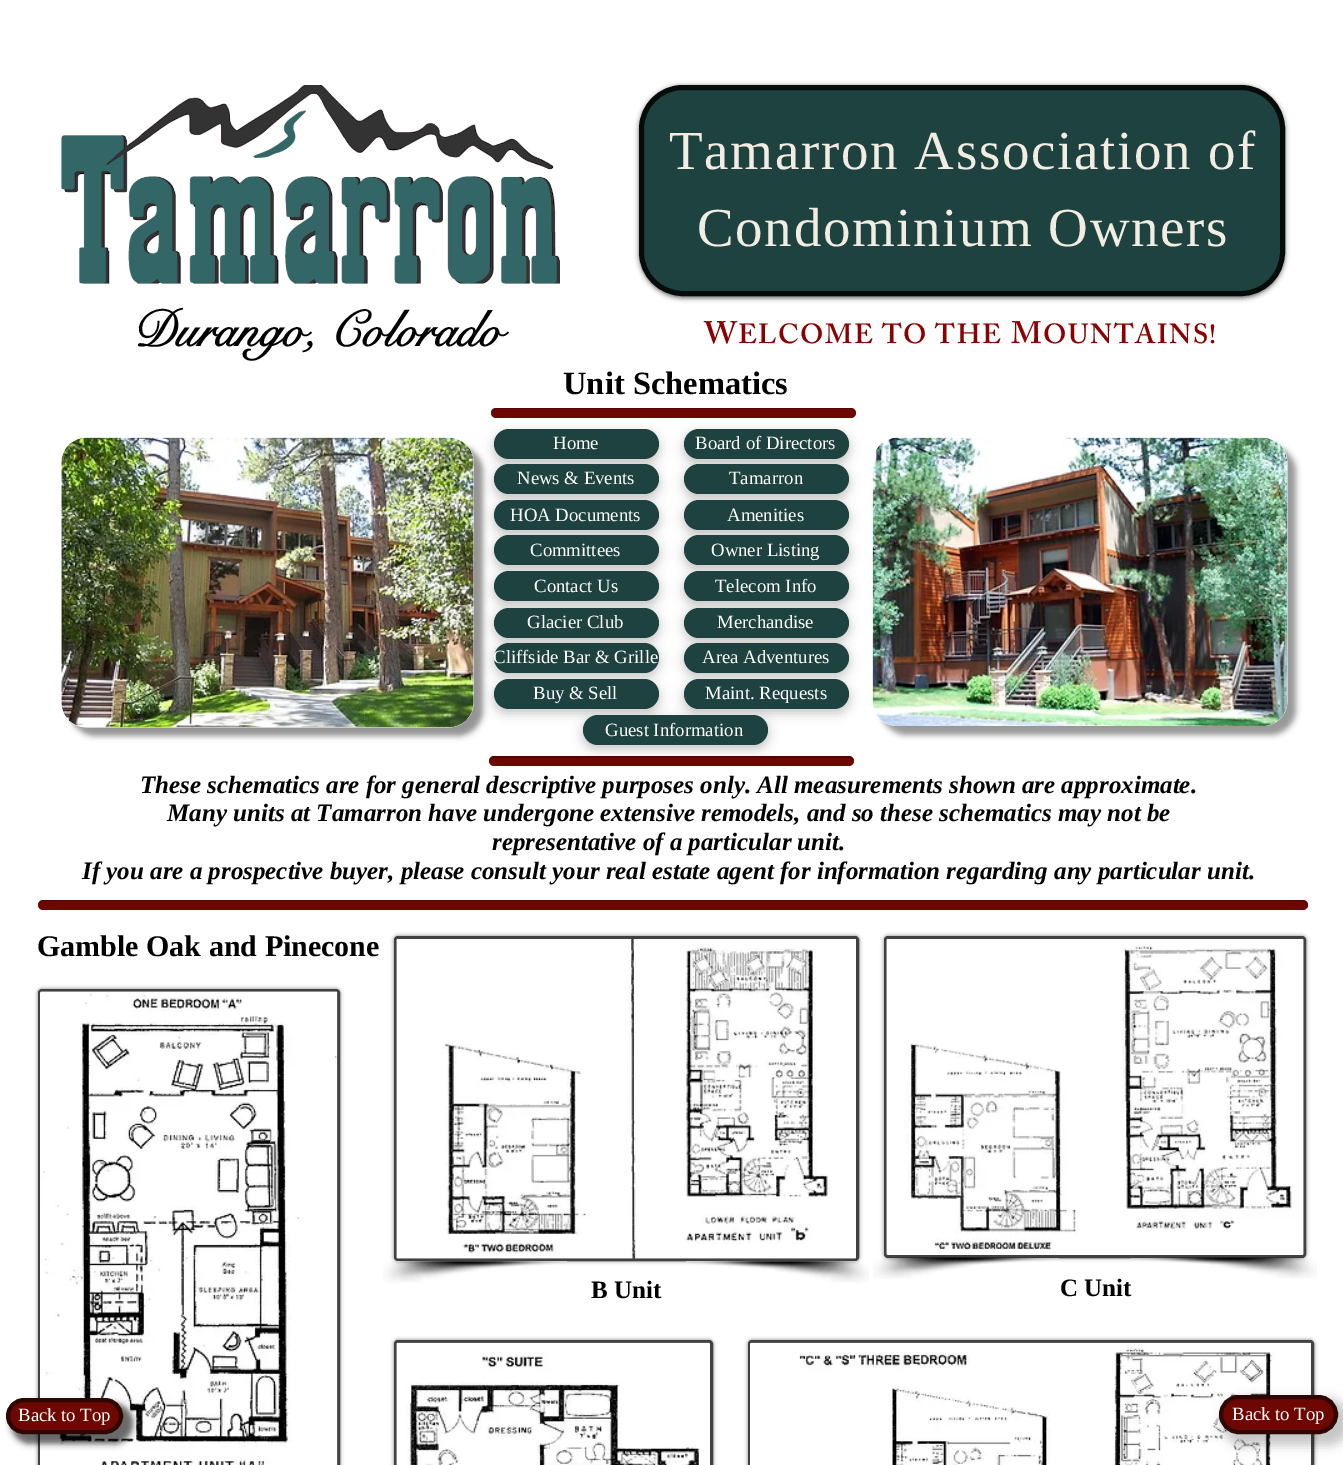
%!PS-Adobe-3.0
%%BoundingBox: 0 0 1343 1465
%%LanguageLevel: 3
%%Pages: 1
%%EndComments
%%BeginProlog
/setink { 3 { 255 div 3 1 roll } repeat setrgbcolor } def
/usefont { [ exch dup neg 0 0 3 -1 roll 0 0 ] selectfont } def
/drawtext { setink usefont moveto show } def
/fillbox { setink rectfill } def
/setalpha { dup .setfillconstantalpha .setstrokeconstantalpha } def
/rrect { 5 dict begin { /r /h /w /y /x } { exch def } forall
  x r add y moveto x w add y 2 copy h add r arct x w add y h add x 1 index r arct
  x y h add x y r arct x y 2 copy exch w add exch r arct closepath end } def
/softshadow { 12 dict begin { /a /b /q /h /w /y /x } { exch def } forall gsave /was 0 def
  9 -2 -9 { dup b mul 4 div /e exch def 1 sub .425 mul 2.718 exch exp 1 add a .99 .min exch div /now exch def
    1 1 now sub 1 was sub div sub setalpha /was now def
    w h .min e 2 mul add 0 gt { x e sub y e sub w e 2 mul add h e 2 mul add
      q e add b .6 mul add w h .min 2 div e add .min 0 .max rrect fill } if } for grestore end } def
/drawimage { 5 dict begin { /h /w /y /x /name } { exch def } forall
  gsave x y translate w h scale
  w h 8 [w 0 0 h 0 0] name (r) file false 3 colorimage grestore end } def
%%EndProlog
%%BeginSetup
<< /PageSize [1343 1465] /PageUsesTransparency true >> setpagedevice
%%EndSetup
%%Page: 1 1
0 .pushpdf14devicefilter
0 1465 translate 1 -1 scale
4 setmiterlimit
0 0 1343 1465 255 255 255 fillbox
(assets/img1.rgb) 61 85 499 199 drawimage
0 0 0 setink
639 86 646 212 44 2.5 0.6 softshadow
29 66 64 setink
641.5 87.5 641 206 41.5 rrect gsave fill grestore
6 12 10 setink
5 setlinewidth
stroke
/LiberationSerif-Regular 55 usefont
242 236 225 setink
669 169 moveto 1.65 0 (Tamarron Association of) ashow
697 246 moveto 1.65 0 (Condominium Owners) ashow
(Durango, Colorado) 132 346 /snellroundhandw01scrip-Bold 50 0 0 0 drawtext
/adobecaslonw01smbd-SemiBold 31 usefont
139 0 0 setink
704 343 moveto 1.5 0 (W) ashow
/adobecaslonw01smbd-SemiBold 27.5 usefont
738 343 moveto 1.5 0 (ELCOME TO THE) ashow
/adobecaslonw01smbd-SemiBold 31 usefont
1011 343 moveto 1.5 0 (M) ashow
/adobecaslonw01smbd-SemiBold 27.5 usefont
1043 343 moveto 1.5 0 (OUNTAINS!) ashow
(Unit Schematics) 563 394 /LiberationSerif-Bold 32.5 0 0 0 drawtext
110 7 1 setink
491 408 365 10 5 rrect fill
0.25 setalpha
0 0 0 setink
496 409 moveto 851 409 lineto 854 409 856 411 856 413 curveto 856 411 854 408 851 408 curveto 496 408 lineto 495 408 493 409 492 409 curveto 491 411 lineto 491 413 lineto 491 411 493 409 496 409 curveto closepath fill
1 setalpha
70 446 413 290 25 3 0.42 softshadow
(assets/img2.rgb) 61 437 413 291 drawimage
494 433 165 30 15 5.5 0.23 softshadow
29 66 64 setink
494 429 165 30 15 rrect fill
(Home) 553 449 /LiberationSerif-Regular 18.75 255 255 255 drawtext
0 0 0 setink
684 433 165 30 15 5.5 0.23 softshadow
29 66 64 setink
684 429 165 30 15 rrect fill
(Board of Directors) 695 449 /LiberationSerif-Regular 18.75 255 255 255 drawtext
0 0 0 setink
881 446 415 289 25 3 0.4 softshadow
(assets/img3.rgb) 872 437 416 289 drawimage
494 468 165 30 15 5.5 0.23 softshadow
29 66 64 setink
494 464 165 30 15 rrect fill
(News & Events) 517 484 /LiberationSerif-Regular 18.75 255 255 255 drawtext
0 0 0 setink
684 468 165 30 15 5.5 0.23 softshadow
29 66 64 setink
684 464 165 30 15 rrect fill
(Tamarron) 729 484 /LiberationSerif-Regular 18.75 255 255 255 drawtext
0 0 0 setink
494 504 165 30 15 5.5 0.23 softshadow
29 66 64 setink
494 500 165 30 15 rrect fill
(HOA Documents) 510 521 /LiberationSerif-Regular 18.75 255 255 255 drawtext
0 0 0 setink
684 504 165 30 15 5.5 0.23 softshadow
29 66 64 setink
684 500 165 30 15 rrect fill
(Amenities) 727 521 /LiberationSerif-Regular 18.75 255 255 255 drawtext
0 0 0 setink
494 539 165 30 15 5.5 0.23 softshadow
29 66 64 setink
494 535 165 30 15 rrect fill
(Committees) 530 556 /LiberationSerif-Regular 18.75 255 255 255 drawtext
0 0 0 setink
684 539 165 30 15 5.5 0.23 softshadow
29 66 64 setink
684 535 165 30 15 rrect fill
(Owner Listing) 711 556 /LiberationSerif-Regular 18.75 255 255 255 drawtext
0 0 0 setink
494 575 165 30 15 5.5 0.23 softshadow
29 66 64 setink
494 571 165 30 15 rrect fill
(Contact Us) 534 592 /LiberationSerif-Regular 18.75 255 255 255 drawtext
0 0 0 setink
684 575 165 30 15 5.5 0.23 softshadow
29 66 64 setink
684 571 165 30 15 rrect fill
(Telecom Info) 715 592 /LiberationSerif-Regular 18.75 255 255 255 drawtext
0 0 0 setink
494 611 165 30 15 5.5 0.23 softshadow
29 66 64 setink
494 608 165 30 15 rrect fill
(Glacier Club) 527 628 /LiberationSerif-Regular 18.75 255 255 255 drawtext
0 0 0 setink
684 611 165 30 15 5.5 0.23 softshadow
29 66 64 setink
684 608 165 30 15 rrect fill
(Merchandise) 717 628 /LiberationSerif-Regular 18.75 255 255 255 drawtext
0 0 0 setink
494 646 165 30 15 5.5 0.23 softshadow
29 66 64 setink
494 643 165 30 15 rrect fill
(Cliffside Bar & Grille) 493 663 /LiberationSerif-Regular 18.75 255 255 255 drawtext
0 0 0 setink
684 646 165 30 15 5.5 0.23 softshadow
29 66 64 setink
684 643 165 30 15 rrect fill
(Area Adventures) 702 663 /LiberationSerif-Regular 18.75 255 255 255 drawtext
0 0 0 setink
494 683 165 30 15 5.5 0.23 softshadow
29 66 64 setink
494 679 165 30 15 rrect fill
(Buy & Sell) 533 699 /LiberationSerif-Regular 18.75 255 255 255 drawtext
0 0 0 setink
684 683 165 30 15 5.5 0.23 softshadow
29 66 64 setink
684 679 165 30 15 rrect fill
(Maint. Requests) 705 699 /LiberationSerif-Regular 18.75 255 255 255 drawtext
0 0 0 setink
583 719 185 30 15 5.5 0.23 softshadow
29 66 64 setink
583 715 185 30 15 rrect fill
(Guest Information) 605 736 /LiberationSerif-Regular 18.75 255 255 255 drawtext
110 7 1 setink
489 756 365 10 5 rrect fill
0.25 setalpha
0 0 0 setink
494 758 moveto 849 758 lineto 852 758 854 760 854 762 curveto 854 759 852 756 849 756 curveto 494 756 lineto 491 756 489 759 489 762 curveto 489 760 491 758 494 758 curveto closepath fill
1 setalpha
(These schematics are for general descriptive purposes only. All measurements shown are approximate.) 140 793 /LiberationSerif-BoldItalic 25 0 0 0 drawtext
(Many units at Tamarron have undergone extensive remodels, and so these schematics may not be) 167 821 /LiberationSerif-BoldItalic 25 0 0 0 drawtext
(representative of a particular unit.) 492 850 /LiberationSerif-BoldItalic 25 0 0 0 drawtext
(If you are a prospective buyer, please consult your real estate agent for information regarding any particular unit.) 82 879 /LiberationSerif-BoldItalic 25 0 0 0 drawtext
110 7 1 setink
38 900 1270 10 5 rrect fill
0.25 setalpha
0 0 0 setink
42 901 moveto 1302 901 lineto 1306 901 1308 905 1307 908 curveto 1308 907 1308 906 1308 905 curveto 1308 902 1306 900 1303 900 curveto 43 900 lineto 41 900 40 901 39 903 curveto 39 902 41 901 42 901 curveto closepath fill
1 setalpha
(Gamble Oak and Pinecone) 37 956 /LiberationSerif-Bold 30 0 0 0 drawtext
394 936 465 325 4 2 0.5 softshadow
65 65 65 setink
3 setlinewidth
395.5 937.5 462 322 2.5 rrect stroke
(assets/img4.rgb) 396 939 460 320 drawimage
(assets/img5.rgb) 383 1261 184 22 drawimage
(assets/img6.rgb) 686 1261 183 22 drawimage
0 0 0 setink
884 936 422 322 4 2 0.5 softshadow
65 65 65 setink
885.5 937.5 419 319 2.5 rrect stroke
(assets/img7.rgb) 886 939 418 316 drawimage
(assets/img8.rgb) 873 1257 186 22 drawimage
(assets/img9.rgb) 1131 1257 186 22 drawimage
0 0 0 setink
38 989 302 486 4 2 0.5 softshadow
65 65 65 setink
39.5 990.5 299 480 2.5 rrect stroke
(assets/img10.rgb) 40 991 298 474 drawimage
(B Unit) 591 1298 /LiberationSerif-Bold 25 0 0 0 drawtext
(C Unit) 1060 1296 /LiberationSerif-Bold 25 0 0 0 drawtext
394 1340 319 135 4 2 0.5 softshadow
65 65 65 setink
395.5 1341.5 316 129 2.5 rrect stroke
(assets/img11.rgb) 396 1342 314 123 drawimage
0 0 0 setink
748 1340 566 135 4 2 0.5 softshadow
65 65 65 setink
749.5 1341.5 563 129 2.5 rrect stroke
(assets/img12.rgb) 750 1342 561 123 drawimage
0 0 0 setink
11 1403 122 41 20.5 3 0.6 softshadow
110 7 1 setink
8 1400 113 32 16 rrect gsave fill grestore
46 6 4 setink
4 setlinewidth
stroke
(Back to Top) 18 1421 /LiberationSerif-Regular 18.75 255 255 255 drawtext
0 0 0 setink
1223 1399 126 46 23 5.5 0.23 softshadow
110 7 1 setink
1221 1397 115 35 17.5 rrect gsave fill grestore
46 6 4 setink
stroke
(Back to Top) 1232 1420 /LiberationSerif-Regular 18.75 255 255 255 drawtext
.poppdf14devicefilter showpage
%%EOF
